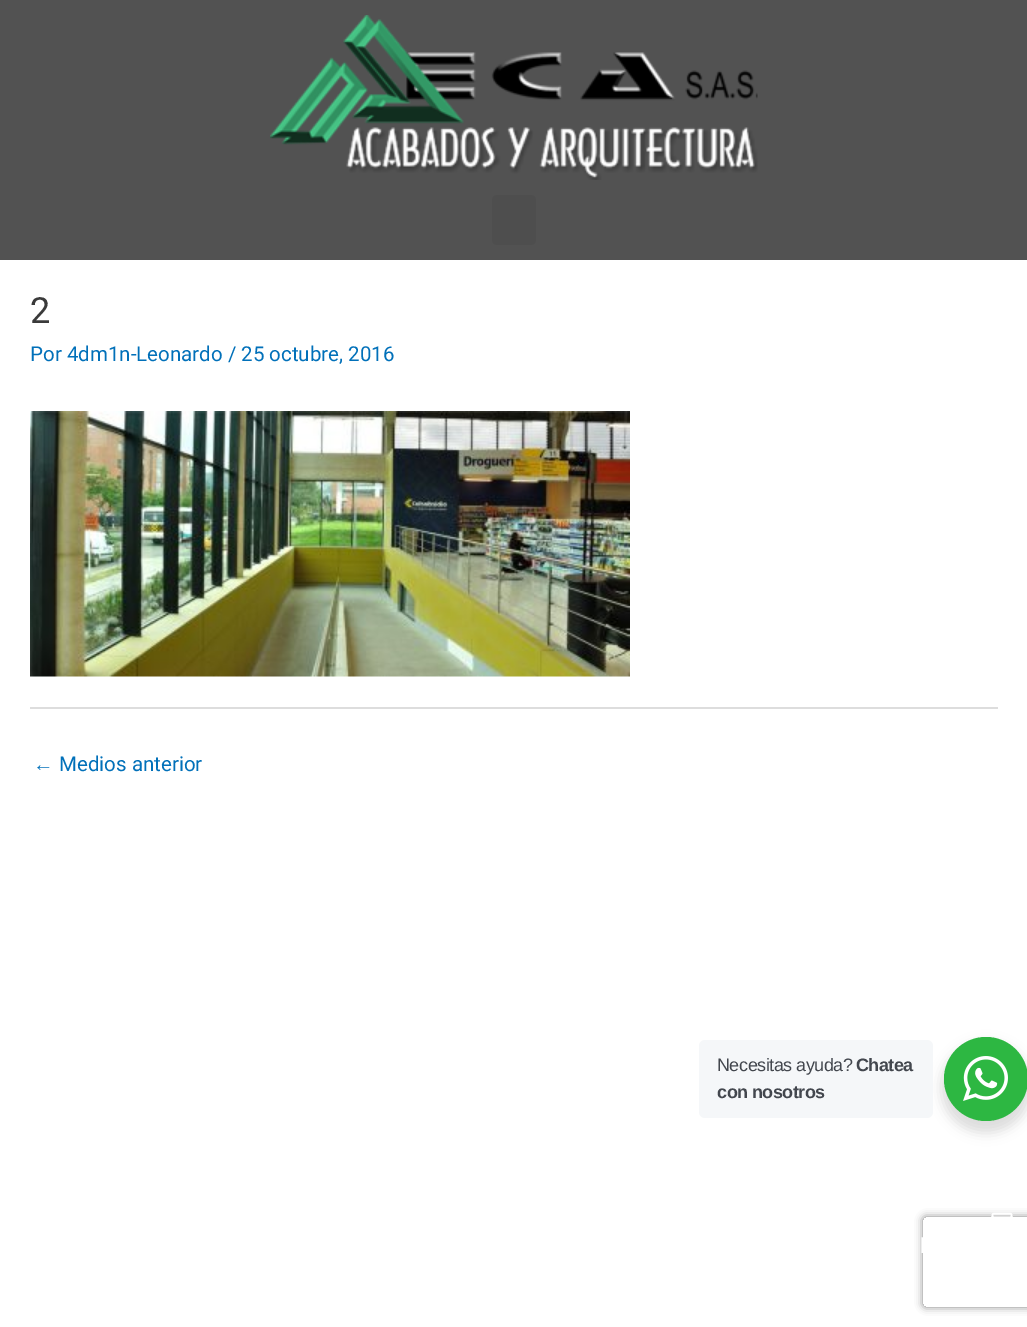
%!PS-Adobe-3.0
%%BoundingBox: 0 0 1027 1327
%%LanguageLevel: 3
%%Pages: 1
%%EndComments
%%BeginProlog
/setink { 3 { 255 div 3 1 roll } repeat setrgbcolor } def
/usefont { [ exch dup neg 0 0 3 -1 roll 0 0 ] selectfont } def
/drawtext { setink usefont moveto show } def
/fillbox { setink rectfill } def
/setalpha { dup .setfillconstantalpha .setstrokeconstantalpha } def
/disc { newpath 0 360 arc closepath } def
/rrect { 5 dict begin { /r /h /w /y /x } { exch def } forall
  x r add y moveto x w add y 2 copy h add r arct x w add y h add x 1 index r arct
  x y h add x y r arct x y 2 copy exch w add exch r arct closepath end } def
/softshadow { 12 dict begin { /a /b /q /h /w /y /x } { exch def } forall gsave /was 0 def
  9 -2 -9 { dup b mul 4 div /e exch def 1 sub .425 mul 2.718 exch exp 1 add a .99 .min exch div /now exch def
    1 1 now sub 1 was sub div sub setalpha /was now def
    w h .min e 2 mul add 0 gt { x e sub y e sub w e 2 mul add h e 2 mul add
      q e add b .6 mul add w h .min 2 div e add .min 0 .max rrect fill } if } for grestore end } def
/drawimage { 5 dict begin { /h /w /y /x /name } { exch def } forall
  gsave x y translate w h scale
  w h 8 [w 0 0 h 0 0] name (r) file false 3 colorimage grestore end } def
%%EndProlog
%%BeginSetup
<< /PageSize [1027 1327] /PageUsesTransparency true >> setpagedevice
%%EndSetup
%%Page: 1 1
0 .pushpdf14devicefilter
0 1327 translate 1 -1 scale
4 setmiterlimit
0 0 1027 1327 255 255 255 fillbox
0 0 1027 260 82 82 82 fillbox
(assets/img1.rgb) 270 15 488 165 drawimage
78 78 78 setink
492 195 44 50 5 rrect fill
(2) 30 323 /Roboto-Regular 36 58 58 58 drawtext
(Por 4dm1n-Leonardo / 25 octubre, 2016) 30 361 /Roboto-Regular 20.5 1 112 185 drawtext
(assets/img2.rgb) 30 411 600 266 drawimage
30 707 968 2 221 221 221 fillbox
(←) 33 771 /LiberationSans-Regular 20.5 1 112 185 drawtext
(Medios anterior) 59 771 /Roboto-Regular 20.5 1 112 185 drawtext
gsave
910 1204 moveto 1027 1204 lineto 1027 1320 lineto 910 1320 lineto closepath 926 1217 moveto 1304 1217 lineto 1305.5 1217 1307 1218.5 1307 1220 curveto 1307 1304 lineto 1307 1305.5 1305.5 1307 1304 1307 curveto 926 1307 lineto 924.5 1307 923 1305.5 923 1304 curveto 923 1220 lineto 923 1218.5 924.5 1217 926 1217 curveto closepath eoclip newpath
128 128 128 setink
923 1217 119 90 3 4 1 softshadow
grestore
(assets/img3.rgb) 991 1212 22 5 drawimage
(l) 920 1253 /Roboto-Regular 21 255 255 255 drawtext
0 0 0 setink
941 1043 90 90 45 6 0.14 softshadow
245 247 249 setink
699 1040 234 78 6 rrect fill
/LiberationSans-Regular 18 usefont
67 71 78 setink
717 1071 moveto -0.5 0 (Necesitas ayuda?) ashow
/LiberationSans-Bold 18 usefont
856 1071 moveto -0.5 0 (Chatea) ashow
717 1098 moveto -0.5 0 (con nosotros) ashow
45 183 66 setink
986 1079 42 disc fill
(assets/img4.rgb) 963 1056 45 45 drawimage
.poppdf14devicefilter showpage
%%EOF
